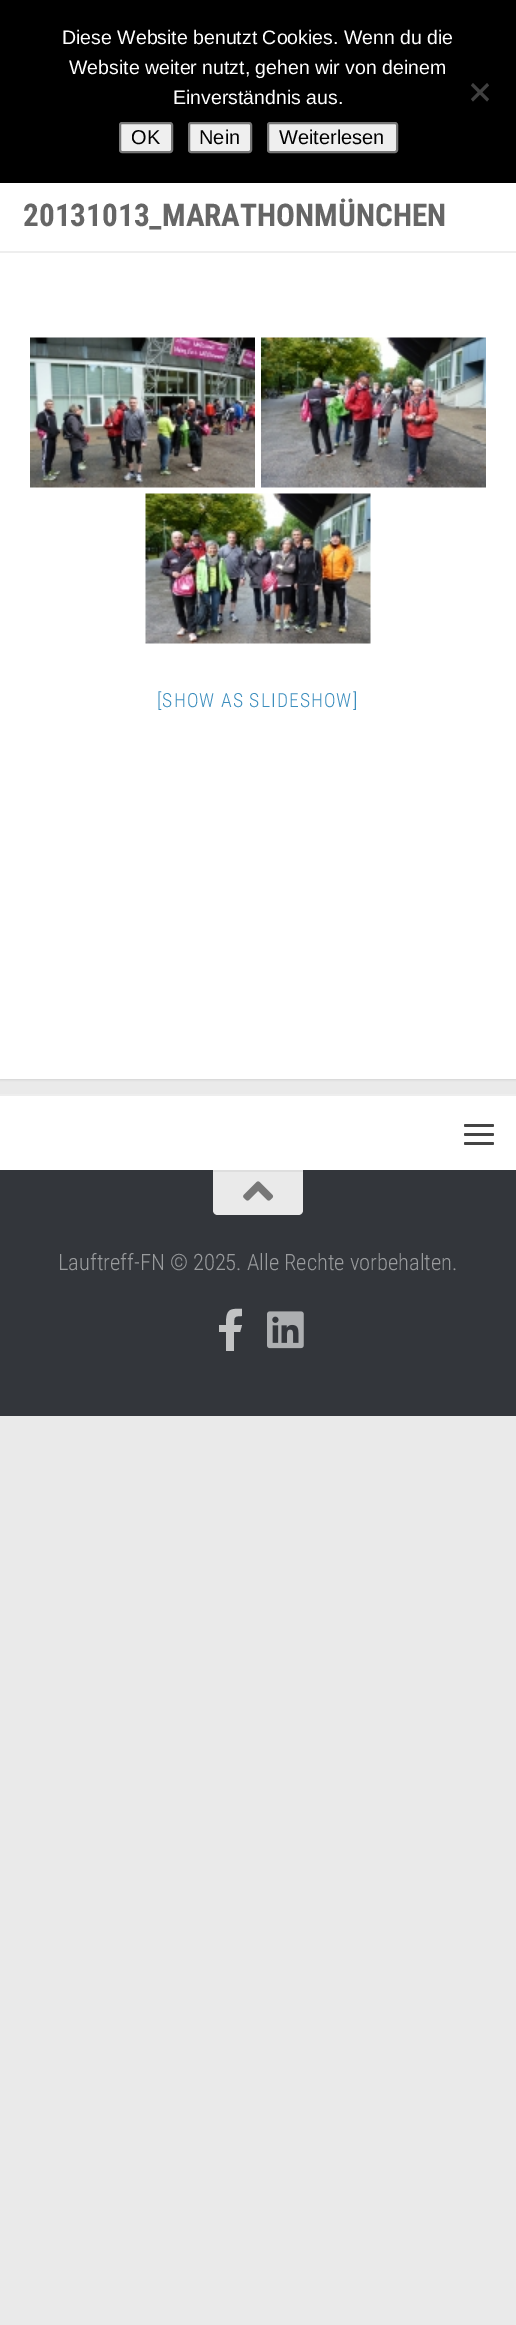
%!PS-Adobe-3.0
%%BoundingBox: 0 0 516 2325
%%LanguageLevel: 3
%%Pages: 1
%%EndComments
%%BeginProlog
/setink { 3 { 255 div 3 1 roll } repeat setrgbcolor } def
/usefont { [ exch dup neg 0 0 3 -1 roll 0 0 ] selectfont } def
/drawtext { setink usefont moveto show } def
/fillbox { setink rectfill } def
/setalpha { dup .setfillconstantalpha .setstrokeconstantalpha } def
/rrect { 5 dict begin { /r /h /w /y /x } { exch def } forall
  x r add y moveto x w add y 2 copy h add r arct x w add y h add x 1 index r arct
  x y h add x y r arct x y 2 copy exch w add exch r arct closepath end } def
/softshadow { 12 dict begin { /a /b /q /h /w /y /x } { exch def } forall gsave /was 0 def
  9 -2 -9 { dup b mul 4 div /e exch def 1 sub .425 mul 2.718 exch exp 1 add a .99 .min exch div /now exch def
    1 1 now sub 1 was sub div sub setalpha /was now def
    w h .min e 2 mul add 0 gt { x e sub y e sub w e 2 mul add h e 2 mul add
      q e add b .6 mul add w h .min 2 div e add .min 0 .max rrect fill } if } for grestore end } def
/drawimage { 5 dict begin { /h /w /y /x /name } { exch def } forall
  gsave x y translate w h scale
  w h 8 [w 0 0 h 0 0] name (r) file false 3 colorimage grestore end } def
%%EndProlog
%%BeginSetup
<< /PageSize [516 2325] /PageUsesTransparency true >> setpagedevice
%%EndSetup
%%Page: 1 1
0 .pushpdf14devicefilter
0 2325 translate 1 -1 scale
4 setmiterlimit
0 0 516 2325 234 234 234 fillbox
0 0 0 setink
0 180 516 900 0 1 0.1 softshadow
0 0 516 183 0 0 0 fillbox
(Diese Website benutzt Cookies. Wenn du die) 62 44 /LiberationSans-Regular 19.5 255 255 255 drawtext
(Website weiter nutzt, gehen wir von deinem) 69 74 /LiberationSans-Regular 19.5 255 255 255 drawtext
(Einverständnis aus.) 173 104 /LiberationSans-Regular 19.5 255 255 255 drawtext
64 64 64 setink
487 83 moveto 489 85.5 lineto 473 101.5 lineto 471 99 lineto closepath fill
471 85.5 moveto 473 83 lineto 489 99 lineto 487 101.5 lineto closepath fill
239 239 239 setink
120 123 52 29 2 rrect gsave fill grestore
118 118 118 setink
2 setlinewidth
stroke
(OK) 131 144 /LiberationSans-Regular 20 0 0 0 drawtext
239 239 239 setink
189 123 62 29 2 rrect gsave fill grestore
118 118 118 setink
stroke
(Nein) 199 144 /LiberationSans-Regular 20 0 0 0 drawtext
239 239 239 setink
268 123 129 29 2 rrect gsave fill grestore
118 118 118 setink
stroke
(Weiterlesen) 279 144 /LiberationSans-Regular 20 0 0 0 drawtext
0 183 516 896 255 255 255 fillbox
0 251 516 2 238 238 238 fillbox
(20131013_MARATHONMÜNCHEN) 23 226 /RobotoCondensed-Bold 31.25 102 102 102 drawtext
(assets/img1.rgb) 30 337 225 151 drawimage
(assets/img2.rgb) 261 337 225 151 drawimage
(assets/img3.rgb) 145 493 226 151 drawimage
/RobotoCondensed-Light 19.5 usefont
59 141 189 setink
157 707 moveto 1.1 0 ([SHOW AS SLIDESHOW]) ashow
0 1096 516 74 255 255 255 fillbox
0 1094 516 2 238 238 238 fillbox
68 68 68 setink
464 1124 30 3 1.5 rrect fill
464 1133 30 3 1.5 rrect fill
464 1142 30 3 1.5 rrect fill
0 1170 516 246 51 54 59 fillbox
234 234 234 setink
213 1170 moveto 303 1170 lineto 303 1210 lineto 303 1213 301 1215 298 1215 curveto 218 1215 lineto 215 1215 213 1213 213 1210 curveto closepath fill
213 1170 90 2 222 222 222 fillbox
(assets/img4.rgb) 243 1181 31 20 drawimage
(Lauftreff-FN © 2025. Alle Rechte vorbehalten.) 58 1270 /RobotoCondensed-Light 22.5 153 155 157 drawtext
194 195 196 setink
240 1332 moveto 234 1332 lineto 234 1351 lineto 226 1351 lineto 226 1332 lineto 219 1332 lineto 219 1325 lineto 226 1325 lineto 226 1311 228 1308 242 1309 curveto 242 1316 lineto 234 1316 234 1317 234 1325 curveto 242 1325 lineto closepath fill
(assets/img5.rgb) 267 1311 37 38 drawimage
.poppdf14devicefilter showpage
%%EOF
